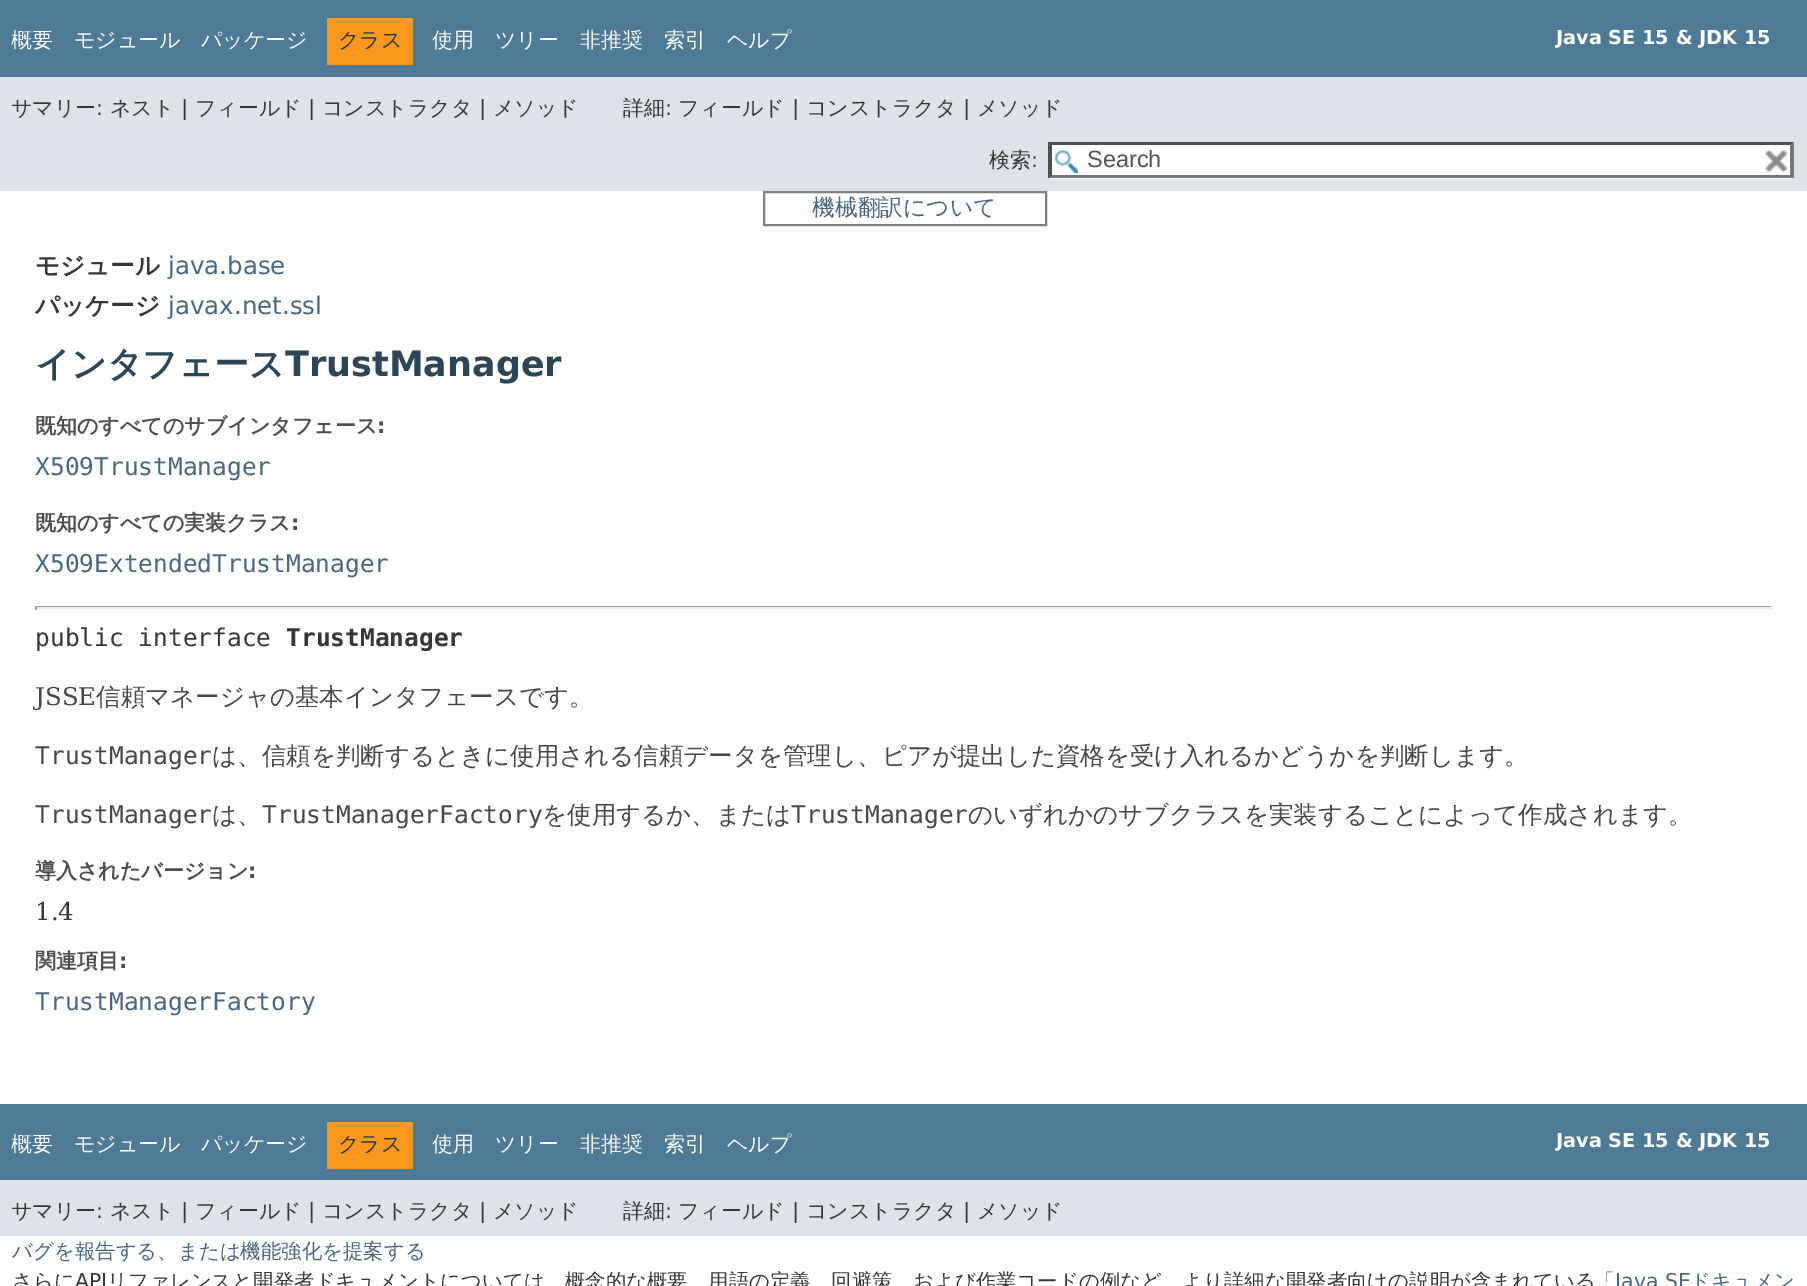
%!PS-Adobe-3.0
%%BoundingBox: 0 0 1807 1286
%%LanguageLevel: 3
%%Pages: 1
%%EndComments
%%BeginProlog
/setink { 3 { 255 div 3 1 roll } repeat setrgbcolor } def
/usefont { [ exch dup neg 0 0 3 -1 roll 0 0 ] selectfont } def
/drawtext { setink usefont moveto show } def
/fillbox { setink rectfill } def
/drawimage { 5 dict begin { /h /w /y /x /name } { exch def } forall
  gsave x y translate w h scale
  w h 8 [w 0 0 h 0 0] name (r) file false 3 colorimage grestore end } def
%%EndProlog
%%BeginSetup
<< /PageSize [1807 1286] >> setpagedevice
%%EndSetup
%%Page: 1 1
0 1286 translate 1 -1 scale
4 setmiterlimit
0 0 1807 1286 255 255 255 fillbox
0 0 1807 77 77 122 151 fillbox
(概要) 11 47 /WenQuanYiZenHei-Medium 21 255 255 255 drawtext
(モジュール) 74 47 /WenQuanYiZenHei-Medium 21 255 255 255 drawtext
(パッケージ) 201 47 /WenQuanYiZenHei-Medium 21 255 255 255 drawtext
327 18 86 47 248 152 29 fillbox
(クラス) 338 47 /WenQuanYiZenHei-Medium 21 37 52 65 drawtext
(使用) 432 47 /WenQuanYiZenHei-Medium 21 255 255 255 drawtext
(ツリー) 495 47 /WenQuanYiZenHei-Medium 21 255 255 255 drawtext
(非推奨) 580 47 /WenQuanYiZenHei-Medium 21 255 255 255 drawtext
(索引) 664 47 /WenQuanYiZenHei-Medium 21 255 255 255 drawtext
(ヘルプ) 727 47 /WenQuanYiZenHei-Medium 21 255 255 255 drawtext
(Java SE 15 & JDK 15) 1556 44 /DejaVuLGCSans-Bold 19.25 255 255 255 drawtext
0 77 1807 114 222 227 233 fillbox
(サマリー) 11 115 /WenQuanYiZenHei-Medium 21 53 56 51 drawtext
(:) 96 115 /DejaVuLGCSans-Regular 21 53 56 51 drawtext
(ネスト) 110 115 /WenQuanYiZenHei-Medium 21 53 56 51 drawtext
(|) 181 115 /DejaVuLGCSans-Regular 21 53 56 51 drawtext
(フィールド) 195 115 /WenQuanYiZenHei-Medium 21 53 56 51 drawtext
(|) 308 115 /DejaVuLGCSans-Regular 21 53 56 51 drawtext
(コンストラクタ) 322 115 /WenQuanYiZenHei-Medium 21 53 56 51 drawtext
(|) 479 115 /DejaVuLGCSans-Regular 21 53 56 51 drawtext
(メソッド) 493 115 /WenQuanYiZenHei-Medium 21 53 56 51 drawtext
(詳細) 623 115 /WenQuanYiZenHei-Medium 21 53 56 51 drawtext
(:) 665 115 /DejaVuLGCSans-Regular 21 53 56 51 drawtext
(フィールド) 678 115 /WenQuanYiZenHei-Medium 21 53 56 51 drawtext
(|) 792 115 /DejaVuLGCSans-Regular 21 53 56 51 drawtext
(コンストラクタ) 806 115 /WenQuanYiZenHei-Medium 21 53 56 51 drawtext
(|) 963 115 /DejaVuLGCSans-Regular 21 53 56 51 drawtext
(メソッド) 977 115 /WenQuanYiZenHei-Medium 21 53 56 51 drawtext
(検索) 989 167 /WenQuanYiZenHei-Medium 21 53 56 51 drawtext
(:) 1031 167 /DejaVuLGCSans-Regular 21 53 56 51 drawtext
1048 142 746 37 255 255 255 fillbox
(assets/img1.rgb) 1055 150 23 24 drawimage
79 79 79 setink
1048 142 moveto 1794 142 lineto 1790 145 lineto 1052 145 lineto closepath fill
118 118 118 setink
1794 142 moveto 1794 178.5 lineto 1790 175 lineto 1790 145 lineto closepath fill
1794 178 moveto 1048 178 lineto 1052 175 lineto 1790 175 lineto closepath fill
79 79 79 setink
1048 178.5 moveto 1048 142 lineto 1052 145 lineto 1052 175 lineto closepath fill
(Search) 1087 167 /LiberationSans-Regular 23.5 84 84 84 drawtext
(assets/img2.rgb) 1764 150 24 22 drawimage
128 128 128 setink
2 setlinewidth
764 192 282 33 rectstroke
(機械翻訳について) 812 215 /WenQuanYiZenHei-Medium 22.75 74 103 130 drawtext
(モジュール) 35 274 /WenQuanYiZenHei-Bold 24.5 53 56 51 drawtext
(java.base) 168 274 /DejaVuLGCSans-Regular 24.5 74 103 130 drawtext
(パッケージ) 35 314 /WenQuanYiZenHei-Bold 24.5 53 56 51 drawtext
(javax.net.ssl) 168 314 /DejaVuLGCSans-Regular 24.5 74 103 130 drawtext
(インタフェース) 35 376 /WenQuanYiZenHei-Bold 35 44 69 87 drawtext
(TrustManager) 285 376 /DejaVuLGCSans-Bold 35 44 69 87 drawtext
(既知のすべてのサブインタフェース) 35 433 /WenQuanYiZenHei-Bold 21 78 78 78 drawtext
(:) 377 433 /DejaVuLGCSans-Bold 21 78 78 78 drawtext
(X509TrustManager) 35 475 /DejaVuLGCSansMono-Regular 24.5 74 103 130 drawtext
(既知のすべての実装クラス) 35 530 /WenQuanYiZenHei-Bold 21 78 78 78 drawtext
(:) 291 530 /DejaVuLGCSans-Bold 21 78 78 78 drawtext
(X509ExtendedTrustManager) 35 572 /DejaVuLGCSansMono-Regular 24.5 74 103 130 drawtext
35 606 1738 1 159 159 159 fillbox
1771 606 2 4 238 238 238 fillbox
35 607 1738 2 238 238 238 fillbox
35 606 2 4 159 159 159 fillbox
(public interface) 35 646 /DejaVuLGCSansMono-Regular 24.5 53 56 51 drawtext
(TrustManager) 286 646 /DejaVuLGCSansMono-Bold 24.5 53 56 51 drawtext
(JSSE) 35 705 /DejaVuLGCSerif-Regular 24.5 71 71 71 drawtext
(信頼マネージャの基本インタフェースです。) 96 705 /WenQuanYiZenHei-Medium 24.5 71 71 71 drawtext
(TrustManager) 35 764 /DejaVuLGCSansMono-Regular 24.5 71 71 71 drawtext
(は、信頼を判断するときに使用される信頼データを管理し、ピアが提出した資格を受け入れるかどうかを判断します。) 212 764 /WenQuanYiZenHei-Medium 24.5 71 71 71 drawtext
(TrustManager) 35 823 /DejaVuLGCSansMono-Regular 24.5 71 71 71 drawtext
(は、) 212 823 /WenQuanYiZenHei-Medium 24.5 71 71 71 drawtext
(TrustManagerFactory) 262 823 /DejaVuLGCSansMono-Regular 24.5 71 71 71 drawtext
(を使用するか、または) 542 823 /WenQuanYiZenHei-Medium 24.5 71 71 71 drawtext
(TrustManager) 791 823 /DejaVuLGCSansMono-Regular 24.5 71 71 71 drawtext
(のいずれかのサブクラスを実装することによって作成されます。) 968 823 /WenQuanYiZenHei-Medium 24.5 71 71 71 drawtext
(導入されたバージョン) 35 878 /WenQuanYiZenHei-Bold 21 78 78 78 drawtext
(:) 248 878 /DejaVuLGCSans-Bold 21 78 78 78 drawtext
(1.4) 35 920 /DejaVuLGCSerif-Regular 24.5 53 56 51 drawtext
(関連項目) 35 968 /WenQuanYiZenHei-Bold 21 78 78 78 drawtext
(:) 119 968 /DejaVuLGCSans-Bold 21 78 78 78 drawtext
(TrustManagerFactory) 35 1010 /DejaVuLGCSansMono-Regular 24.5 74 103 130 drawtext
0 1104 1807 76 77 122 151 fillbox
(概要) 11 1151 /WenQuanYiZenHei-Medium 21 255 255 255 drawtext
(モジュール) 74 1151 /WenQuanYiZenHei-Medium 21 255 255 255 drawtext
(パッケージ) 201 1151 /WenQuanYiZenHei-Medium 21 255 255 255 drawtext
327 1122 86 47 248 152 29 fillbox
(クラス) 338 1151 /WenQuanYiZenHei-Medium 21 37 52 65 drawtext
(使用) 432 1151 /WenQuanYiZenHei-Medium 21 255 255 255 drawtext
(ツリー) 495 1151 /WenQuanYiZenHei-Medium 21 255 255 255 drawtext
(非推奨) 580 1151 /WenQuanYiZenHei-Medium 21 255 255 255 drawtext
(索引) 664 1151 /WenQuanYiZenHei-Medium 21 255 255 255 drawtext
(ヘルプ) 727 1151 /WenQuanYiZenHei-Medium 21 255 255 255 drawtext
(Java SE 15 & JDK 15) 1556 1147 /DejaVuLGCSans-Bold 19.25 255 255 255 drawtext
0 1180 1807 56 222 227 233 fillbox
(サマリー) 11 1218 /WenQuanYiZenHei-Medium 21 53 56 51 drawtext
(:) 96 1218 /DejaVuLGCSans-Regular 21 53 56 51 drawtext
(ネスト) 110 1218 /WenQuanYiZenHei-Medium 21 53 56 51 drawtext
(|) 181 1218 /DejaVuLGCSans-Regular 21 53 56 51 drawtext
(フィールド) 195 1218 /WenQuanYiZenHei-Medium 21 53 56 51 drawtext
(|) 308 1218 /DejaVuLGCSans-Regular 21 53 56 51 drawtext
(コンストラクタ) 322 1218 /WenQuanYiZenHei-Medium 21 53 56 51 drawtext
(|) 479 1218 /DejaVuLGCSans-Regular 21 53 56 51 drawtext
(メソッド) 493 1218 /WenQuanYiZenHei-Medium 21 53 56 51 drawtext
(詳細) 623 1218 /WenQuanYiZenHei-Medium 21 53 56 51 drawtext
(:) 665 1218 /DejaVuLGCSans-Regular 21 53 56 51 drawtext
(フィールド) 678 1218 /WenQuanYiZenHei-Medium 21 53 56 51 drawtext
(|) 792 1218 /DejaVuLGCSans-Regular 21 53 56 51 drawtext
(コンストラクタ) 806 1218 /WenQuanYiZenHei-Medium 21 53 56 51 drawtext
(|) 963 1218 /DejaVuLGCSans-Regular 21 53 56 51 drawtext
(メソッド) 977 1218 /WenQuanYiZenHei-Medium 21 53 56 51 drawtext
(バグを報告する、または機能強化を提案する) 12 1258 /WenQuanYiZenHei-Medium 20.42 74 103 130 drawtext
(さらに) 12 1288 /WenQuanYiZenHei-Medium 20.42 53 56 51 drawtext
(API) 75 1288 /DejaVuLGCSans-Regular 20.42 53 56 51 drawtext
(リファレンスと開発者ドキュメントについては、概念的な概要、用語の定義、回避策、および作業コードの例など、より詳細な開発者向けの説明が含まれている) 107 1288 /WenQuanYiZenHei-Medium 20.42 53 56 51 drawtext
(「) 1594 1288 /WenQuanYiZenHei-Medium 20.42 74 103 130 drawtext
(Java SE) 1615 1288 /DejaVuLGCSans-Regular 20.42 74 103 130 drawtext
(ドキュメン) 1690 1288 /WenQuanYiZenHei-Medium 20.42 74 103 130 drawtext
showpage
%%EOF
